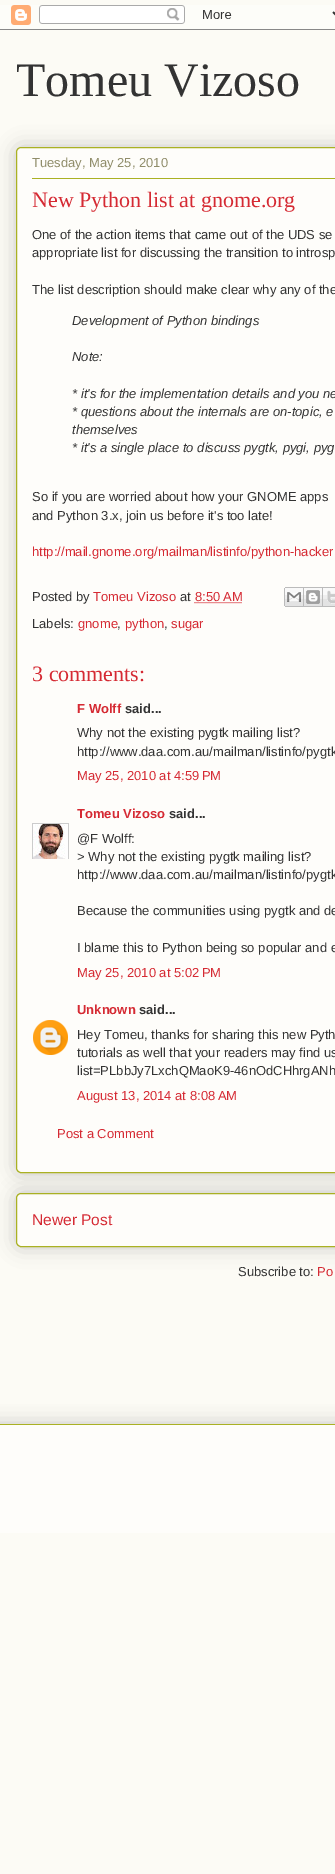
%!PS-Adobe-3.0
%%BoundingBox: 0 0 335 1874
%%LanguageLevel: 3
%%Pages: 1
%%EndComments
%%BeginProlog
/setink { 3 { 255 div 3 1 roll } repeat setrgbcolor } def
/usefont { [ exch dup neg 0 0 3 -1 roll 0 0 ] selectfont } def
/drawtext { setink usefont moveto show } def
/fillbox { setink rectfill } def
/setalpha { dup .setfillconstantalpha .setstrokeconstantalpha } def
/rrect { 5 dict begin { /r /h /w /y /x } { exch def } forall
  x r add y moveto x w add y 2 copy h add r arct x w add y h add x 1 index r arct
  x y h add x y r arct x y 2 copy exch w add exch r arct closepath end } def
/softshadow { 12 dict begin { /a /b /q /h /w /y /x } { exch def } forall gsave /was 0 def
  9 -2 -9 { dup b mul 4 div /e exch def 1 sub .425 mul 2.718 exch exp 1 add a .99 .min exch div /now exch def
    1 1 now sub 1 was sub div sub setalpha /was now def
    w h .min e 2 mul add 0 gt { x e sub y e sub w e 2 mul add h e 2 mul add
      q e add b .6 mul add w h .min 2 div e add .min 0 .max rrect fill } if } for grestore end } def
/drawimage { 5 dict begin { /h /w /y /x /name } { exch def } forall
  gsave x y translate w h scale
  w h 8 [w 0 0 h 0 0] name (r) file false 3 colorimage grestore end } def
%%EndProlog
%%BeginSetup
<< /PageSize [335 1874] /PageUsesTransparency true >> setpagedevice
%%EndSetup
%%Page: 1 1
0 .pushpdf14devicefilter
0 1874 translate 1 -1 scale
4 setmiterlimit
0 0 335 1874 252 251 245 fillbox
(assets/img1.rgb) 0 5 335 25 drawimage
(Tomeu Vizoso) 16 96 /LiberationSerif-Regular 48 51 51 51 drawtext
0 0 0 setink
16 1193 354 54 5 10 0.2 softshadow
254 253 250 setink
16.5 1193.5 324 53 4.5 rrect gsave fill grestore
170 177 35 setink
stroke
0 0 0 setink
16 147 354 1026 5 10 0.2 softshadow
254 253 250 setink
16.5 147.5 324 1025 4.5 rrect gsave fill grestore
170 177 35 setink
stroke
(Tuesday, May 25, 2010) 32 167 /LiberationSans-Regular 13 144 141 106 drawtext
32 178 303 1 170 177 35 fillbox
(New Python list at gnome.org) 32 207 /LiberationSerif-Regular 22 213 42 51 drawtext
(One of the action items that came out of the UDS se) 32 239 /LiberationSans-Regular 13 51 51 51 drawtext
(appropriate list for discussing the transition to introsp) 32 257 /LiberationSans-Regular 13 51 51 51 drawtext
(The list description should make clear why any of the) 32 294 /LiberationSans-Regular 13 51 51 51 drawtext
(Development of Python bindings) 72 325 /LiberationSans-Italic 13 51 51 51 drawtext
(Note:) 72 361 /LiberationSans-Italic 13 51 51 51 drawtext
(* it's for the implementation details and you ne) 72 398 /LiberationSans-Italic 13 51 51 51 drawtext
(* questions about the internals are on-topic, e) 72 416 /LiberationSans-Italic 13 51 51 51 drawtext
(themselves) 72 434 /LiberationSans-Italic 13 51 51 51 drawtext
(* it's a single place to discuss pygtk, pygi, pyg) 72 452 /LiberationSans-Italic 13 51 51 51 drawtext
(So if you are worried about how your GNOME apps) 32 501 /LiberationSans-Regular 13 51 51 51 drawtext
(and Python 3.x, join us before it's too late!) 32 520 /LiberationSans-Regular 13 51 51 51 drawtext
(http://mail.gnome.org/mailman/listinfo/python-hacker) 32 556 /LiberationSans-Regular 13 213 42 51 drawtext
(Posted by) 32 601 /LiberationSans-Regular 13 51 51 51 drawtext
(Tomeu Vizoso) 93 601 /LiberationSans-Regular 13 213 42 51 drawtext
(at) 180 601 /LiberationSans-Regular 13 51 51 51 drawtext
(8:50 AM) 195 601 /LiberationSans-Regular 13 213 42 51 drawtext
[1 1] 0 setdash
194.5 602.5 moveto 242 602.5 lineto stroke
(assets/img2.rgb) 284 587 20 20 drawimage
(assets/img3.rgb) 304 587 19 20 drawimage
(assets/img4.rgb) 323 587 12 20 drawimage
(Labels:) 32 628 /LiberationSans-Regular 13 51 51 51 drawtext
(gnome) 78 628 /LiberationSans-Regular 13 213 42 51 drawtext
(,) 117 628 /LiberationSans-Regular 13 51 51 51 drawtext
(python) 125 628 /LiberationSans-Regular 13 213 42 51 drawtext
(,) 164 628 /LiberationSans-Regular 13 51 51 51 drawtext
(sugar) 171 628 /LiberationSans-Regular 13 213 42 51 drawtext
(3 comments:) 32 681 /LiberationSerif-Regular 22 213 42 51 drawtext
(F Wolff) 77 713 /LiberationSans-Bold 13 213 42 51 drawtext
(said...) 125 713 /LiberationSans-Bold 13 51 51 51 drawtext
(Why not the existing pygtk mailing list?) 77 737 /LiberationSans-Regular 13 51 51 51 drawtext
(http://www.daa.com.au/mailman/listinfo/pygtk) 77 756 /LiberationSans-Regular 13 51 51 51 drawtext
(May 25, 2010 at 4:59 PM) 77 780 /LiberationSans-Regular 13 213 42 51 drawtext
(Tomeu Vizoso) 77 818 /LiberationSans-Bold 13 213 42 51 drawtext
(said...) 169 818 /LiberationSans-Bold 13 51 51 51 drawtext
gsave
32 823 37 36 rectclip
204 204 204 setink
[] 0 setdash
32.5 823.5 36 36 rectstroke
grestore
(assets/img5.rgb) 33 824 35 35 drawimage
(@F Wolff:) 77 843 /LiberationSans-Regular 13 51 51 51 drawtext
(> Why not the existing pygtk mailing list?) 77 861 /LiberationSans-Regular 13 51 51 51 drawtext
(http://www.daa.com.au/mailman/listinfo/pygtk) 77 879 /LiberationSans-Regular 13 51 51 51 drawtext
(Because the communities using pygtk and de) 77 915 /LiberationSans-Regular 13 51 51 51 drawtext
(I blame this to Python being so popular and e) 77 952 /LiberationSans-Regular 13 51 51 51 drawtext
(May 25, 2010 at 5:02 PM) 77 977 /LiberationSans-Regular 13 213 42 51 drawtext
(Unknown) 77 1014 /LiberationSans-Bold 13 213 42 51 drawtext
(said...) 139 1014 /LiberationSans-Bold 13 51 51 51 drawtext
(assets/img6.rgb) 33 1020 35 35 drawimage
(Hey Tomeu, thanks for sharing this new Pyth) 77 1039 /LiberationSans-Regular 13 51 51 51 drawtext
(tutorials as well that your readers may find us) 77 1057 /LiberationSans-Regular 13 51 51 51 drawtext
(list=PLbbJy7LxchQMaoK9-46nOdCHhrgANh) 77 1075 /LiberationSans-Regular 13 51 51 51 drawtext
(August 13, 2014 at 8:08 AM) 77 1100 /LiberationSans-Regular 13 213 42 51 drawtext
(Post a Comment) 57 1138 /LiberationSans-Regular 13 213 42 51 drawtext
(Newer Post) 32 1225 /LiberationSans-Regular 15.5 213 42 51 drawtext
(Subscribe to:) 238 1276 /LiberationSans-Regular 13 51 51 51 drawtext
(Po) 317 1276 /LiberationSans-Regular 13 213 42 51 drawtext
gsave
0 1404 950 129 rectclip
0 0 0 setink
-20 1424 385 109 0 10 0.2 softshadow
grestore
0 1425 335 108 254 253 250 fillbox
0 1424 335 1 170 177 35 fillbox
.poppdf14devicefilter showpage
%%EOF
